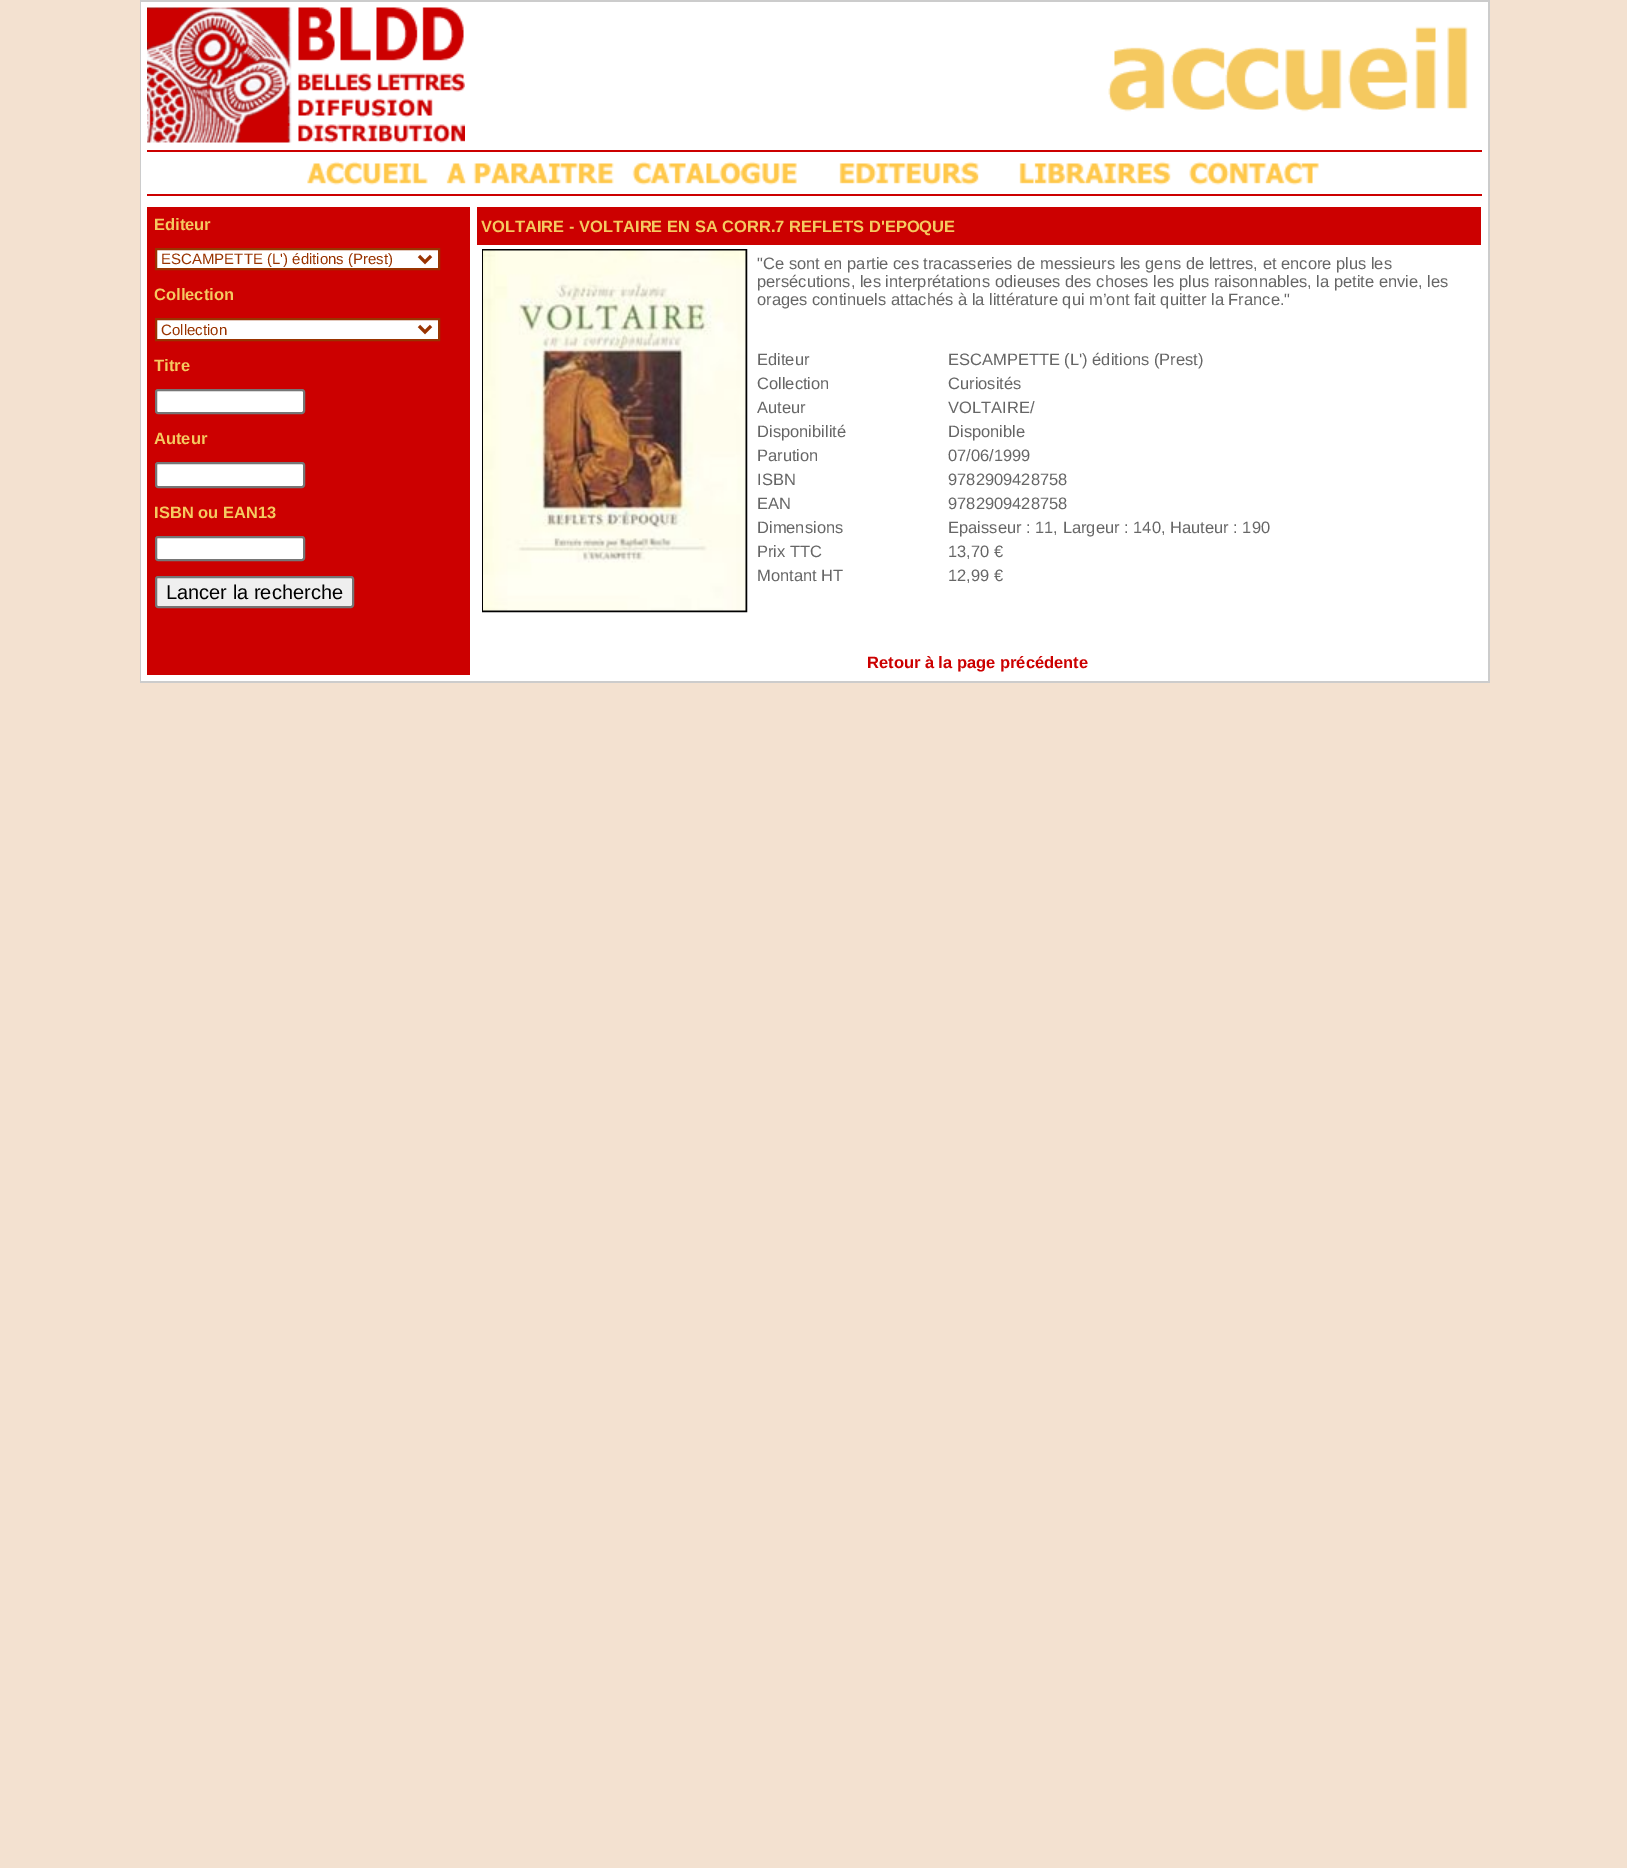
%!PS-Adobe-3.0
%%BoundingBox: 0 0 1627 1868
%%LanguageLevel: 3
%%Pages: 1
%%EndComments
%%BeginProlog
/setink { 3 { 255 div 3 1 roll } repeat setrgbcolor } def
/usefont { [ exch dup neg 0 0 3 -1 roll 0 0 ] selectfont } def
/drawtext { setink usefont moveto show } def
/fillbox { setink rectfill } def
/rrect { 5 dict begin { /r /h /w /y /x } { exch def } forall
  x r add y moveto x w add y 2 copy h add r arct x w add y h add x 1 index r arct
  x y h add x y r arct x y 2 copy exch w add exch r arct closepath end } def
/drawimage { 5 dict begin { /h /w /y /x /name } { exch def } forall
  gsave x y translate w h scale
  w h 8 [w 0 0 h 0 0] name (r) file false 3 colorimage grestore end } def
%%EndProlog
%%BeginSetup
<< /PageSize [1627 1868] >> setpagedevice
%%EndSetup
%%Page: 1 1
0 1868 translate 1 -1 scale
4 setmiterlimit
0 0 1627 1868 243 225 208 fillbox
140 0 1350 683 204 204 204 fillbox
141 2 1347 679 255 255 255 fillbox
(assets/img1.rgb) 147 7 318 136 drawimage
(assets/img2.rgb) 1108 26 360 86 drawimage
147 150 1335 2 204 0 0 fillbox
(assets/img3.rgb) 307 161 121 24 drawimage
(assets/img4.rgb) 446 163 168 21 drawimage
(assets/img5.rgb) 632 161 165 24 drawimage
(assets/img6.rgb) 839 161 140 24 drawimage
(assets/img7.rgb) 1019 161 152 24 drawimage
(assets/img8.rgb) 1189 161 130 24 drawimage
147 194 1335 2 204 0 0 fillbox
147 207 323 468 204 0 0 fillbox
(Editeur) 154 230 /LiberationSans-Bold 16.5 245 201 96 drawtext
255 255 255 setink
156 249 moveto 439 249 lineto 439 269 lineto 156 269 lineto closepath gsave fill grestore
153 51 0 setink
2 setlinewidth
stroke
3 setlinewidth
419 256 moveto 425 262 lineto 431 256 lineto stroke
(ESCAMPETTE \(L'\) éditions \(Prest\)) 161 264 /LiberationSans-Regular 15 153 51 0 drawtext
(Collection) 154 300 /LiberationSans-Bold 16.5 245 201 96 drawtext
255 255 255 setink
156 319 moveto 439 319 lineto 439 340 lineto 156 340 lineto closepath gsave fill grestore
153 51 0 setink
2 setlinewidth
stroke
3 setlinewidth
419 326 moveto 425 332 lineto 431 326 lineto stroke
(Collection) 161 335 /LiberationSans-Regular 15 153 51 0 drawtext
(Titre) 154 371 /LiberationSans-Bold 16.5 245 201 96 drawtext
255 255 255 setink
156 390 148 23 2 rrect gsave fill grestore
118 118 118 setink
2 setlinewidth
stroke
(Auteur) 154 444 /LiberationSans-Bold 16.5 245 201 96 drawtext
255 255 255 setink
156 463 148 24 2 rrect gsave fill grestore
118 118 118 setink
stroke
(ISBN ou EAN13) 154 518 /LiberationSans-Bold 16.5 245 201 96 drawtext
255 255 255 setink
156 537 148 23 2 rrect gsave fill grestore
118 118 118 setink
stroke
239 239 239 setink
156 577 197 30 2 rrect gsave fill grestore
118 118 118 setink
stroke
(Lancer la recherche) 166 599 /LiberationSans-Regular 20 0 0 0 drawtext
477 207 1004 38 204 0 0 fillbox
(VOLTAIRE - VOLTAIRE EN SA CORR.7 REFLETS D'EPOQUE) 481 232 /LiberationSans-Bold 16.5 245 201 96 drawtext
0 0 0 setink
483 250 263 361 rectstroke
(assets/img9.rgb) 483 250 263 361 drawimage
("Ce sont en partie ces tracasseries de messieurs les gens de lettres, et encore plus les) 757 269 /LiberationSans-Regular 16.5 102 102 102 drawtext
(persécutions, les interprétations odieuses des choses les plus raisonnables, la petite envie, les) 757 287 /LiberationSans-Regular 16.5 102 102 102 drawtext
(orages continuels attachés à la littérature qui m’ont fait quitter la France.") 757 305 /LiberationSans-Regular 16.5 102 102 102 drawtext
(Editeur) 757 365 /LiberationSans-Regular 16.5 102 102 102 drawtext
(ESCAMPETTE \(L'\) éditions \(Prest\)) 948 365 /LiberationSans-Regular 16.5 102 102 102 drawtext
(Collection) 757 389 /LiberationSans-Regular 16.5 102 102 102 drawtext
(Curiosités) 948 389 /LiberationSans-Regular 16.5 102 102 102 drawtext
(Auteur) 757 413 /LiberationSans-Regular 16.5 102 102 102 drawtext
(VOLTAIRE/) 948 413 /LiberationSans-Regular 16.5 102 102 102 drawtext
(Disponibilité) 757 437 /LiberationSans-Regular 16.5 102 102 102 drawtext
(Disponible) 948 437 /LiberationSans-Regular 16.5 102 102 102 drawtext
(Parution) 757 461 /LiberationSans-Regular 16.5 102 102 102 drawtext
(07/06/1999) 948 461 /LiberationSans-Regular 16.5 102 102 102 drawtext
(ISBN) 757 485 /LiberationSans-Regular 16.5 102 102 102 drawtext
(9782909428758) 948 485 /LiberationSans-Regular 16.5 102 102 102 drawtext
(EAN) 757 509 /LiberationSans-Regular 16.5 102 102 102 drawtext
(9782909428758) 948 509 /LiberationSans-Regular 16.5 102 102 102 drawtext
(Dimensions) 757 533 /LiberationSans-Regular 16.5 102 102 102 drawtext
(Epaisseur : 11, Largeur : 140, Hauteur : 190) 948 533 /LiberationSans-Regular 16.5 102 102 102 drawtext
(Prix TTC) 757 557 /LiberationSans-Regular 16.5 102 102 102 drawtext
(13,70 €) 948 557 /LiberationSans-Regular 16.5 102 102 102 drawtext
(Montant HT) 757 581 /LiberationSans-Regular 16.5 102 102 102 drawtext
(12,99 €) 948 581 /LiberationSans-Regular 16.5 102 102 102 drawtext
(Retour à la page précédente) 867 668 /LiberationSans-Bold 16.5 204 0 0 drawtext
showpage
%%EOF
